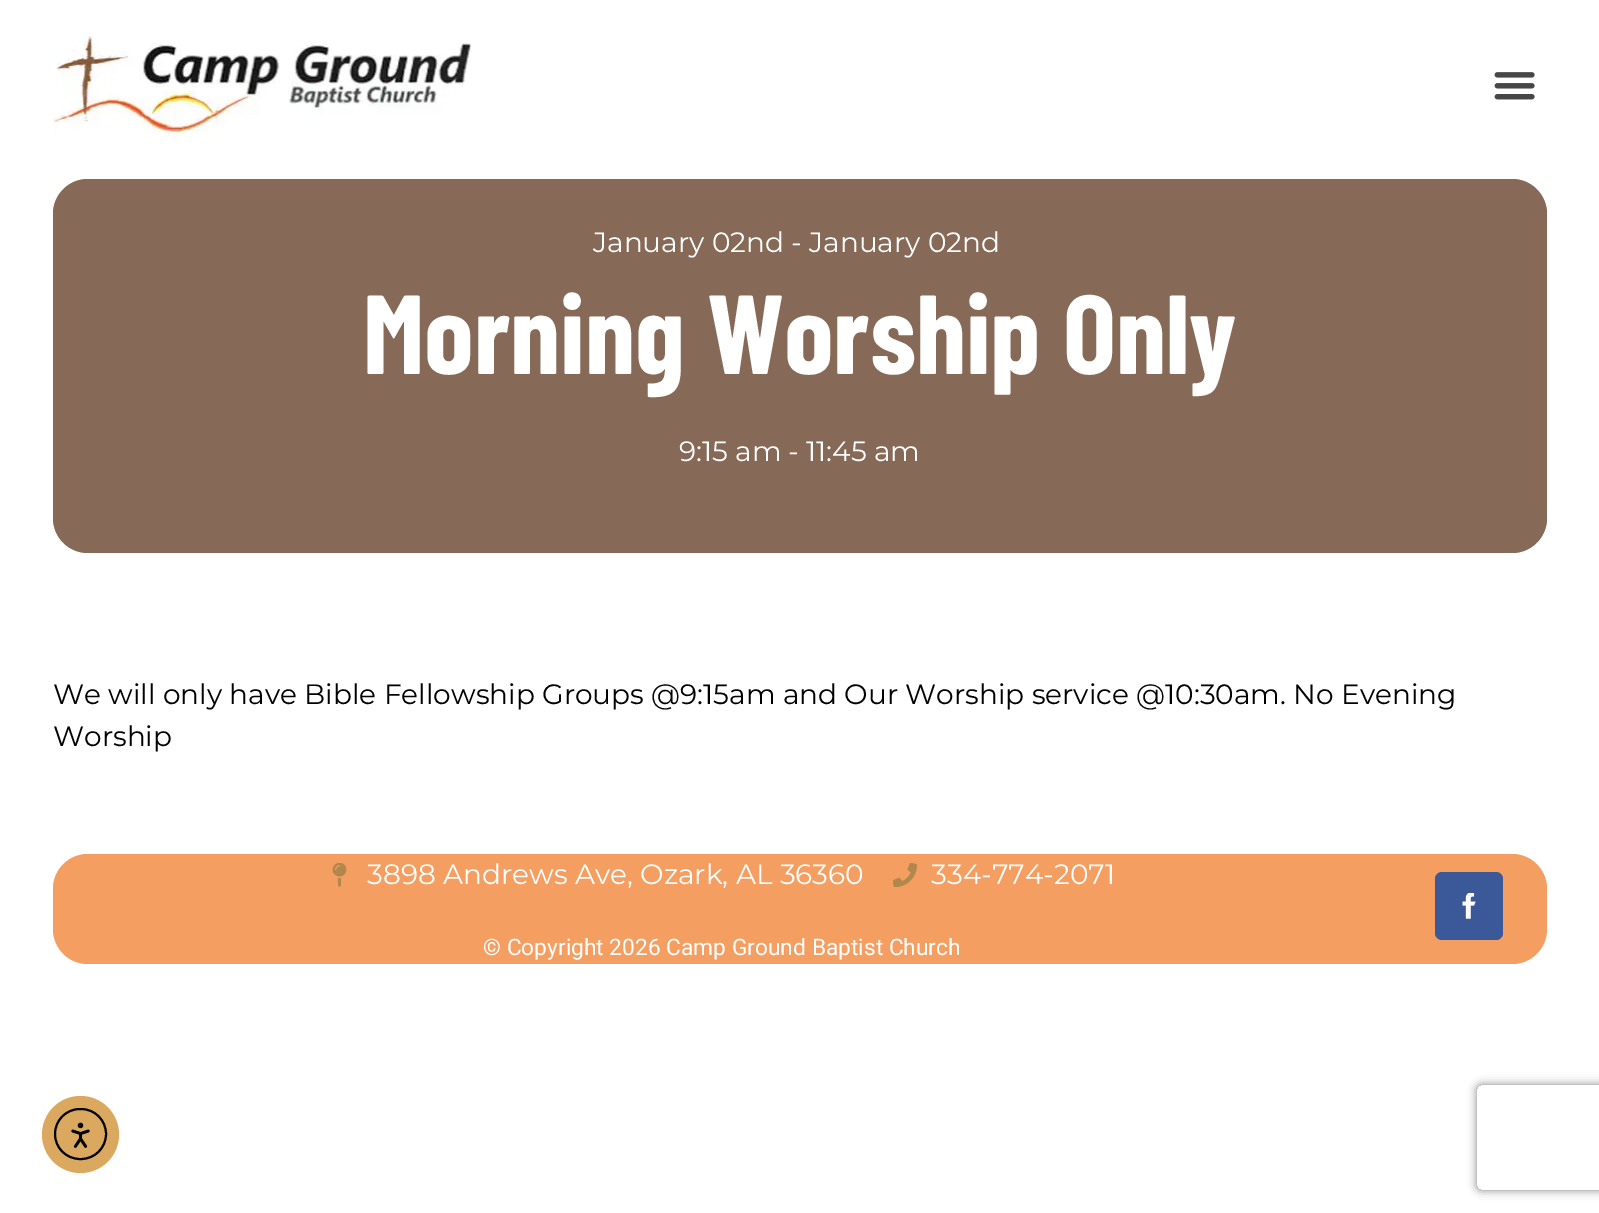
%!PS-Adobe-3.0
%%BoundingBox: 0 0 1599 1213
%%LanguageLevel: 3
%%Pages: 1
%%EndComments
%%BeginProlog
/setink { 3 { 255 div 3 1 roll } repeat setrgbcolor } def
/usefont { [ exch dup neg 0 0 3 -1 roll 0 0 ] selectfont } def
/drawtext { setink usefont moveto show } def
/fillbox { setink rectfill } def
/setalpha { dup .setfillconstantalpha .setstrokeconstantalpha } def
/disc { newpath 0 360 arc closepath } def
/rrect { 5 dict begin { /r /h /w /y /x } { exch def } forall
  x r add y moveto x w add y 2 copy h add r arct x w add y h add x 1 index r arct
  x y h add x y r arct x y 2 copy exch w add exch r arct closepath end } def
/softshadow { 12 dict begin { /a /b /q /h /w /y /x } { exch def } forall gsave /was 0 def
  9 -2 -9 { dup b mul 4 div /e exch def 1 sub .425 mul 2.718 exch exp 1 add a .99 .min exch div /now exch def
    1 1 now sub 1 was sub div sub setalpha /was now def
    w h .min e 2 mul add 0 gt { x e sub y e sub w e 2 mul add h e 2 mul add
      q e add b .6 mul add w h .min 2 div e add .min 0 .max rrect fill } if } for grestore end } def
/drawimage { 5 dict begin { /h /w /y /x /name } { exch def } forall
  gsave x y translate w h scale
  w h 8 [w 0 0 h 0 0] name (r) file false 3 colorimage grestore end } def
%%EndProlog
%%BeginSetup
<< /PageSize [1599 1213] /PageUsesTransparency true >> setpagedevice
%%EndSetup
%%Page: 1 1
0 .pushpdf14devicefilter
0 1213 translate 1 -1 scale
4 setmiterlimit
0 0 1599 1213 255 255 255 fillbox
(assets/img1.rgb) 52 35 419 100 drawimage
(assets/img2.rgb) 1494 72 41 28 drawimage
84 89 95 setink
53 179 1494 374 35 rrect fill
0.32 setalpha
241 138 66 setink
53 179 1494 374 35 rrect fill
1 setalpha
(January 02nd) 593 252 /Montserrat-Regular 28 255 255 255 drawtext
(- January 02nd) 791 252 /Montserrat-Regular 28 255 255 255 drawtext
(Morning Worship Only) 363 374 /BarlowCondensed-Bold 112 255 255 255 drawtext
(9:15 am) 679 461 /Montserrat-Regular 28 255 255 255 drawtext
(- 11:45 am) 788 461 /Montserrat-Regular 28 255 255 255 drawtext
(We will only have Bible Fellowship Groups @9:15am and Our Worship service @10:30am. No Evening) 53 704 /Montserrat-Regular 28 0 0 0 drawtext
(Worship) 53 746 /Montserrat-Regular 28 0 0 0 drawtext
245 167 111 setink
53 854 1494 110 35 rrect fill
0.32 setalpha
241 138 66 setink
53 854 1494 110 35 rrect fill
1 setalpha
(assets/img3.rgb) 332 863 15 24 drawimage
(3898 Andrews Ave, Ozark, AL 36360) 367 884 /Montserrat-Regular 28 255 255 255 drawtext
(assets/img4.rgb) 893 863 24 24 drawimage
(334-774-2071) 931 884 /Montserrat-Regular 28 255 255 255 drawtext
(© Copyright 2026 Camp Ground Baptist Church) 483 955 /Roboto-Regular 22.75 255 255 255 drawtext
59 89 152 setink
1435 872 68 68 7 rrect fill
(assets/img5.rgb) 1462 893 14 26 drawimage
219 168 96 setink
80.5 1134.5 38.5 disc fill
0 0 0 setink
2 setlinewidth
55 1109 51 50 25 rrect stroke
(assets/img6.rgb) 71 1122 19 26 drawimage
gsave
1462 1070 moveto 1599 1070 lineto 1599 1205 lineto 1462 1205 lineto closepath 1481 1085 moveto 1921 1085 lineto 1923 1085 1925 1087 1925 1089 curveto 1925 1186 lineto 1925 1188 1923 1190 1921 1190 curveto 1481 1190 lineto 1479 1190 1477 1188 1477 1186 curveto 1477 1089 lineto 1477 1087 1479 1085 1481 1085 curveto closepath eoclip newpath
128 128 128 setink
1477 1085 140 105 4 4.5 1 softshadow
grestore
.poppdf14devicefilter showpage
%%EOF
